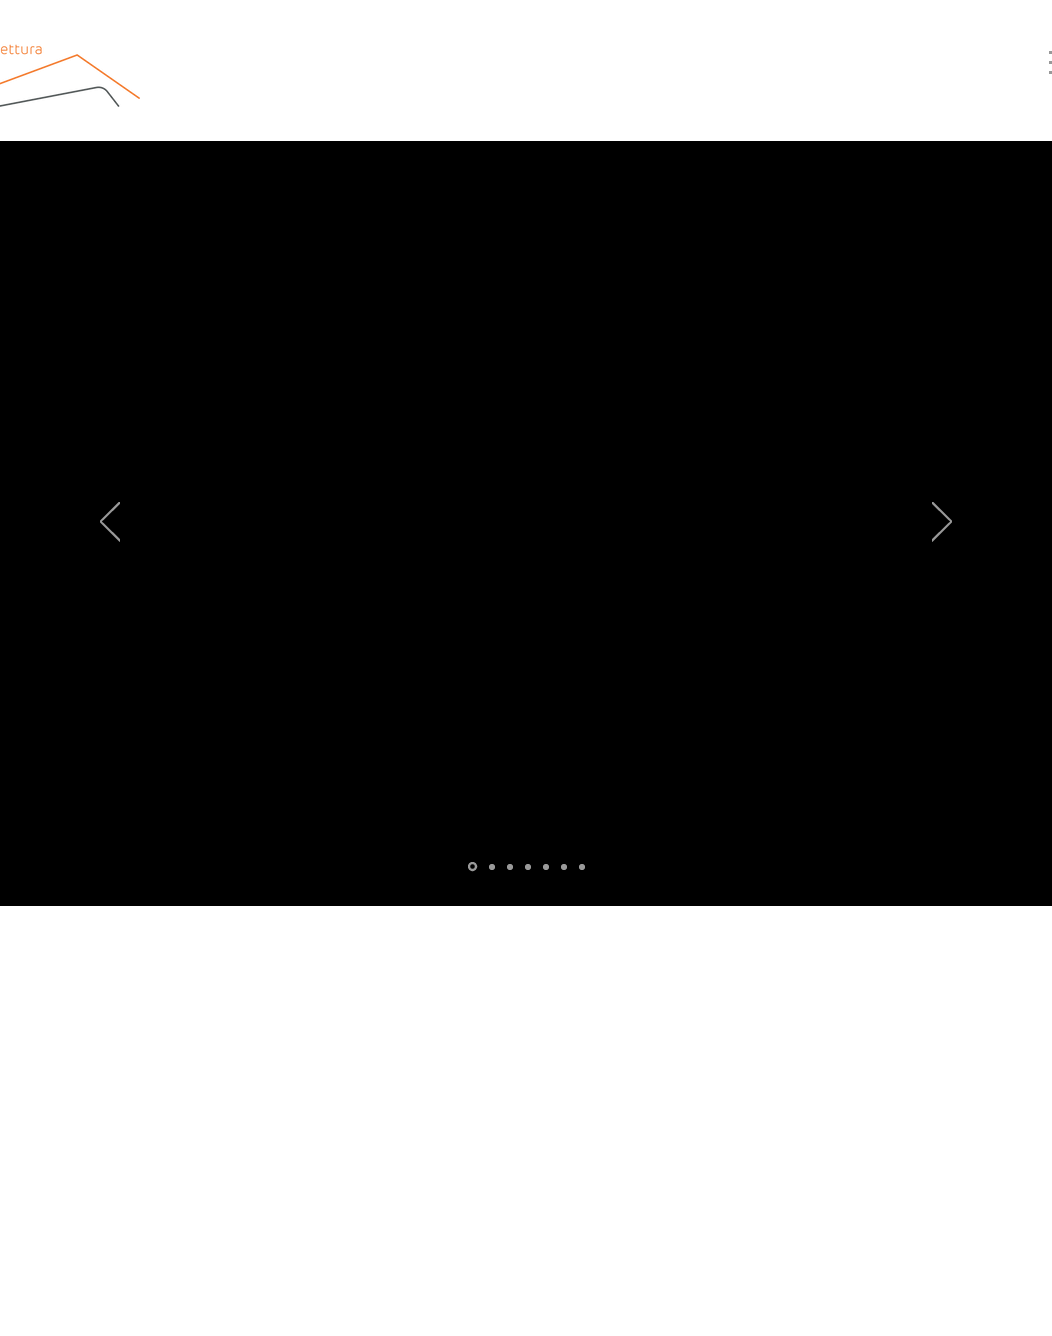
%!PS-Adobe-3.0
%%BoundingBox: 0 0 1052 1336
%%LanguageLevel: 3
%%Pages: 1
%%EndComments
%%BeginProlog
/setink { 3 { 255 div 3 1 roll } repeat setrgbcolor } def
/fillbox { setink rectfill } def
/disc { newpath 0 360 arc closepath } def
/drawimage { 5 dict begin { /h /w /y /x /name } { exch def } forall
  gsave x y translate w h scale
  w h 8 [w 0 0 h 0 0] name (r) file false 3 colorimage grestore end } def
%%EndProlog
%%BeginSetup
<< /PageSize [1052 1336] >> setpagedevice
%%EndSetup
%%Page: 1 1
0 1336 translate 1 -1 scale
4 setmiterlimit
0 0 1052 1336 255 255 255 fillbox
(assets/img1.rgb) 0 44 140 63 drawimage
1049 71 3 3 153 153 153 fillbox
1049 51 3 3 153 153 153 fillbox
1049 61 3 3 153 153 153 fillbox
0 141 1052 765 0 0 0 fillbox
gsave
100 502 20 40 rectclip
153 153 153 setink
119.5 541 moveto 100 521.5 lineto 119.5 502 lineto 120 503 lineto 101 521.5 lineto 120 540 lineto closepath stroke
grestore
gsave
932 502 20 40 rectclip
153 153 153 setink
932.5 541 moveto 952 521.5 lineto 932.5 502 lineto 932 503 lineto 951 521.5 lineto 932 540 lineto closepath stroke
grestore
153 153 153 setink
2 setlinewidth
472.5 866.5 3.5 disc stroke
492 867 3 disc fill
510 867 3 disc fill
528 867 3 disc fill
546 867 3 disc fill
564 867 3 disc fill
582 867 3 disc fill
showpage
%%EOF
